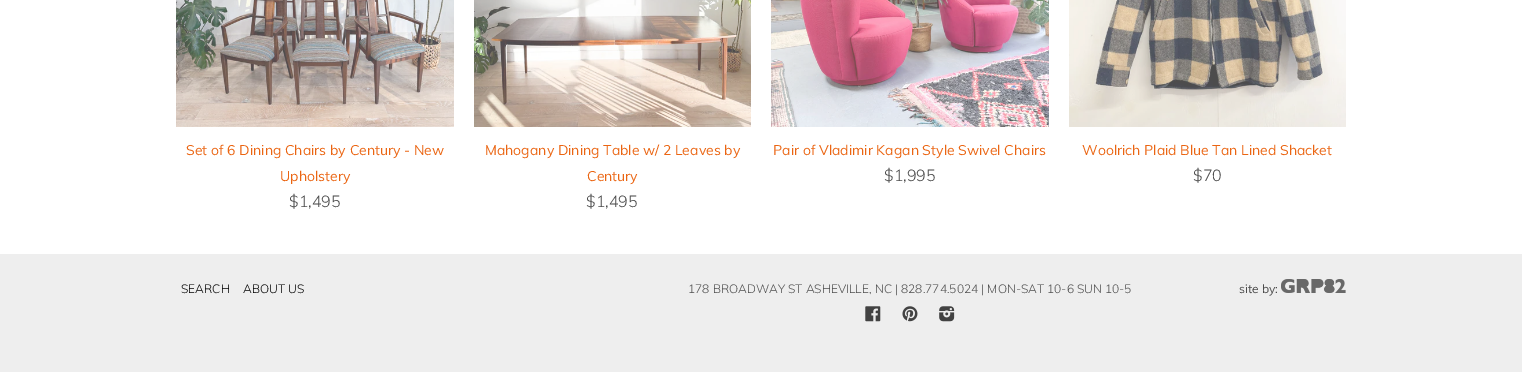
%!PS-Adobe-3.0
%%BoundingBox: 0 0 1522 372
%%LanguageLevel: 3
%%Pages: 1
%%EndComments
%%BeginProlog
/setink { 3 { 255 div 3 1 roll } repeat setrgbcolor } def
/usefont { [ exch dup neg 0 0 3 -1 roll 0 0 ] selectfont } def
/drawtext { setink usefont moveto show } def
/fillbox { setink rectfill } def
/drawimage { 5 dict begin { /h /w /y /x /name } { exch def } forall
  gsave x y translate w h scale
  w h 8 [w 0 0 h 0 0] name (r) file false 3 colorimage grestore end } def
%%EndProlog
%%BeginSetup
<< /PageSize [1522 372] >> setpagedevice
%%EndSetup
%%Page: 1 1
0 372 translate 1 -1 scale
4 setmiterlimit
0 0 1522 372 255 255 255 fillbox
(assets/img1.rgb) 176 0 278 127 drawimage
(Set of 6 Dining Chairs by Century - New) 186 155 /Muli-Regular 14 235 101 18 drawtext
(Upholstery) 280 181 /Muli-Regular 14 235 101 18 drawtext
($1,495) 289 207 /Muli-Light 16 76 76 76 drawtext
(assets/img2.rgb) 474 0 277 127 drawimage
(Mahogany Dining Table w/ 2 Leaves by) 485 155 /Muli-Regular 14 235 101 18 drawtext
(Century) 587 181 /Muli-Regular 14 235 101 18 drawtext
($1,495) 586 207 /Muli-Light 16 76 76 76 drawtext
(assets/img3.rgb) 771 0 278 127 drawimage
(Pair of Vladimir Kagan Style Swivel Chairs) 773 155 /Muli-Regular 14 235 101 18 drawtext
($1,995) 884 181 /Muli-Light 16 76 76 76 drawtext
(assets/img4.rgb) 1069 0 277 127 drawimage
(Woolrich Plaid Blue Tan Lined Shacket) 1082 155 /Muli-Regular 14 235 101 18 drawtext
($70) 1193 181 /Muli-Light 16 76 76 76 drawtext
0 254 1522 118 238 238 238 fillbox
(SEARCH) 181 293 /Muli-Light 12 0 0 0 drawtext
(ABOUT US) 243 293 /Muli-Light 12 0 0 0 drawtext
(178 BROADWAY ST ASHEVILLE, NC | 828.774.5024 | MON-SAT 10-6 SUN 10-5) 688 293 /Muli-Light 12 76 76 76 drawtext
(assets/img5.rgb) 865 306 16 16 drawimage
(assets/img6.rgb) 902 306 16 16 drawimage
(assets/img7.rgb) 939 306 16 16 drawimage
(site by:) 1239 293 /Muli-Regular 12 76 76 76 drawtext
(assets/img8.rgb) 1281 279 65 14 drawimage
showpage
%%EOF
